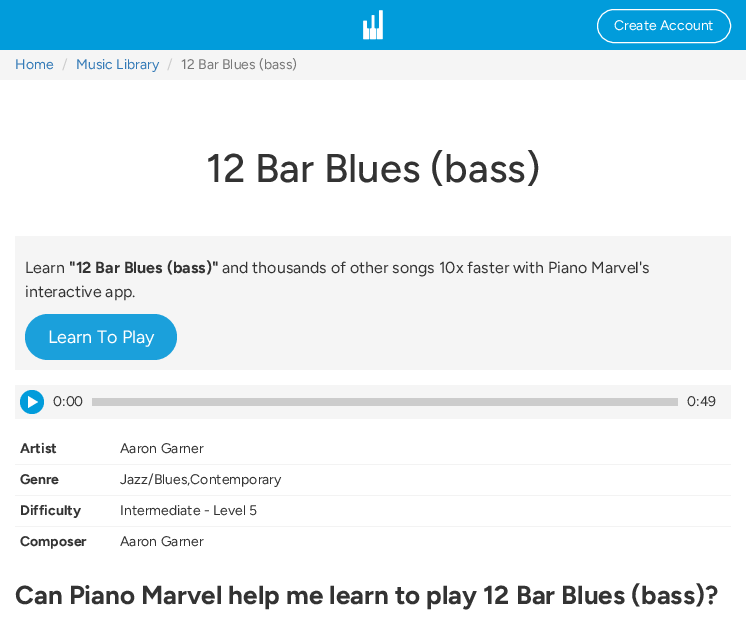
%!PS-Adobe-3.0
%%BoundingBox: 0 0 746 620
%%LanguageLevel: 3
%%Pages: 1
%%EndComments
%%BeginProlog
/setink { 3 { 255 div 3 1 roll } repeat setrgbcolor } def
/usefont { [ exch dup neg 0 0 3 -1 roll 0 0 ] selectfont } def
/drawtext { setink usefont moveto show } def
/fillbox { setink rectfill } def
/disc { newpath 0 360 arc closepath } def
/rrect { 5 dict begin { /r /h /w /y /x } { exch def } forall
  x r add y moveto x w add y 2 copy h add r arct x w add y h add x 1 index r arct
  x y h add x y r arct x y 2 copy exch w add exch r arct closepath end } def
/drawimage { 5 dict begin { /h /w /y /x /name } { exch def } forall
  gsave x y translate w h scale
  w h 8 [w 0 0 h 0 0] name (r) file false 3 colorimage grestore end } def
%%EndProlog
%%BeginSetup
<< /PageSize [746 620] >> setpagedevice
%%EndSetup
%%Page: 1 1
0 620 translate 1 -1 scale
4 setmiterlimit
0 0 746 620 255 255 255 fillbox
0 0 746 50 1 156 219 fillbox
(assets/img1.rgb) 363 10 20 30 drawimage
255 255 255 setink
597.5 9.5 133 33 16.5 rrect stroke
(Create Account) 614 30 /Figtree-Regular 14 255 255 255 drawtext
0 50 746 30 245 245 245 fillbox
(Home) 15 69 /Figtree-Regular 14 51 122 183 drawtext
(/) 62 69 /Figtree-Regular 14 204 204 204 drawtext
(Music Library) 76 69 /Figtree-Regular 14 51 122 183 drawtext
(/) 167 69 /Figtree-Regular 14 204 204 204 drawtext
gsave
162 58 135 14 rectclip
(12 Bar Blues \(bass\)) 181 69 /Figtree-Regular 14 119 119 119 drawtext
grestore
(12 Bar Blues \(bass\)) 206 182 /Figtree-Medium 40 51 51 51 drawtext
15 236 716 134 245 245 245 fillbox
(Learn) 25 273 /Figtree-Regular 16 51 51 51 drawtext
("12 Bar Blues \(bass\)") 69 273 /Figtree-Bold 16 51 51 51 drawtext
(and thousands of other songs 10x faster with Piano Marvel's) 222 273 /Figtree-Regular 16 51 51 51 drawtext
(interactive app.) 25 297 /Figtree-Regular 16 51 51 51 drawtext
27 160 219 setink
25 314 152 46 23 rrect fill
(Learn To Play) 48 343 /Figtree-Regular 18 255 255 255 drawtext
15 385 716 34 245 245 245 fillbox
1 156 219 setink
32 402 12 disc fill
255 255 255 setink
28 408 moveto 28 396 lineto 38 402 lineto closepath fill
(0:00) 53 406 /Figtree-Regular 14 51 51 51 drawtext
92 398 586 8 204 204 204 fillbox
(0:49) 687 406 /Figtree-Regular 14 51 51 51 drawtext
15 464 716 1 243 243 243 fillbox
(Artist) 20 453 /Figtree-Bold 14 51 51 51 drawtext
(Aaron Garner) 120 453 /Figtree-Regular 14 51 51 51 drawtext
15 495 716 1 243 243 243 fillbox
(Genre) 20 484 /Figtree-Bold 14 51 51 51 drawtext
(Jazz/Blues,Contemporary) 120 484 /Figtree-Regular 14 51 51 51 drawtext
15 526 716 1 243 243 243 fillbox
(Difficulty) 20 515 /Figtree-Bold 14 51 51 51 drawtext
(Intermediate - Level 5) 120 515 /Figtree-Regular 14 51 51 51 drawtext
(Composer) 20 546 /Figtree-Bold 14 51 51 51 drawtext
(Aaron Garner) 120 546 /Figtree-Regular 14 51 51 51 drawtext
(Can Piano Marvel help me learn to play 12 Bar Blues \(bass\)?) 15 604 /Figtree-Bold 26 51 51 51 drawtext
showpage
%%EOF
